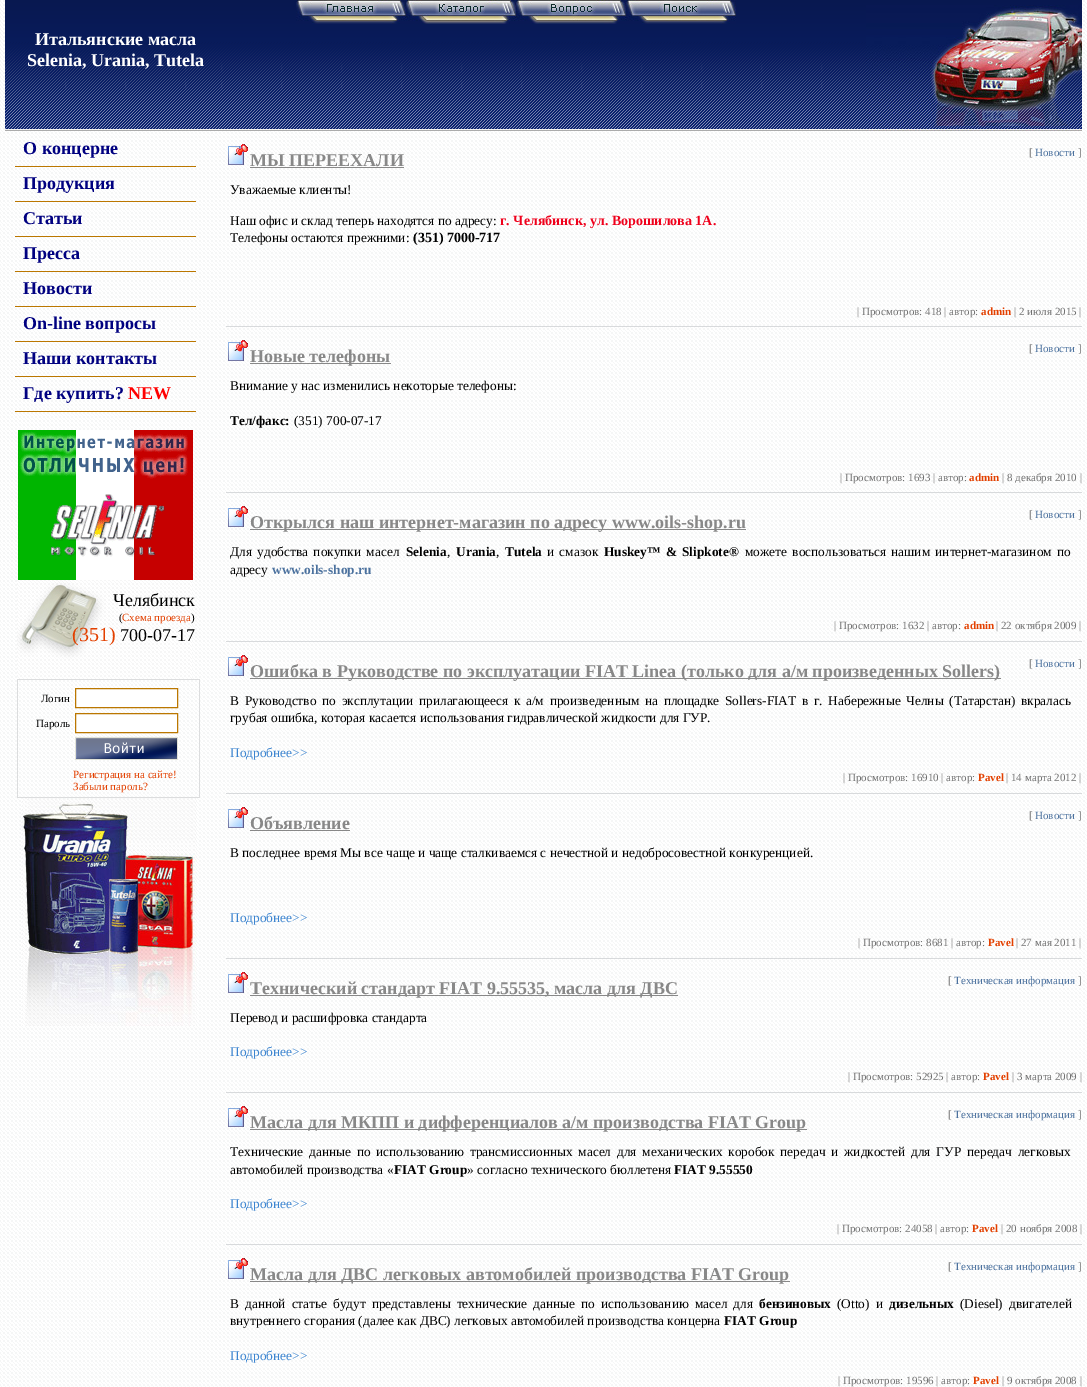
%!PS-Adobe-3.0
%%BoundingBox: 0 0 1087 1387
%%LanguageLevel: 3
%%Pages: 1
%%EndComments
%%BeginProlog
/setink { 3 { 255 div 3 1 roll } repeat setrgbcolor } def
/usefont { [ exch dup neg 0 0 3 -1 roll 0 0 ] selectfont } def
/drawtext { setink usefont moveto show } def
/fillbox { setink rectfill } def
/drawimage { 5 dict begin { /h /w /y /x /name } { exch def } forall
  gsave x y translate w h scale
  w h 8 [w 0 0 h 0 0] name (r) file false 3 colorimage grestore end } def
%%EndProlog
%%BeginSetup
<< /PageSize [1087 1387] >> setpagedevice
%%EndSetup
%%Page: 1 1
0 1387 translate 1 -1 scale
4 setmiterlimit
0 0 1087 1387 255 255 255 fillbox
(assets/img1.rgb) 0 0 1087 1387 drawimage
(assets/img2.rgb) 5 0 216 131 drawimage
(Итальянские масла) 35 45 /LiberationSerif-Bold 18 255 255 255 drawtext
(Selenia, Urania, Tutela) 27 66 /LiberationSerif-Bold 18 255 255 255 drawtext
(assets/img3.rgb) 221 0 645 131 drawimage
(assets/img4.rgb) 296 0 110 24 drawimage
(assets/img5.rgb) 406 0 110 24 drawimage
(assets/img6.rgb) 516 0 110 24 drawimage
(assets/img7.rgb) 626 0 110 24 drawimage
(assets/img8.rgb) 866 0 216 5 drawimage
(assets/img9.rgb) 866 5 216 126 drawimage
15 166 181 1 187 119 0 fillbox
(О концерне) 23 154 /LiberationSerif-Bold 18 0 0 128 drawtext
15 201 181 1 187 119 0 fillbox
(Продукция) 23 189 /LiberationSerif-Bold 18 0 0 128 drawtext
15 236 181 1 187 119 0 fillbox
(Статьи) 23 224 /LiberationSerif-Bold 18 0 0 128 drawtext
15 271 181 1 187 119 0 fillbox
(Пресса) 23 259 /LiberationSerif-Bold 18 0 0 128 drawtext
15 306 181 1 187 119 0 fillbox
(Новости) 23 294 /LiberationSerif-Bold 18 0 0 128 drawtext
15 341 181 1 187 119 0 fillbox
(On-line вопросы) 23 329 /LiberationSerif-Bold 18 0 0 128 drawtext
15 376 181 1 187 119 0 fillbox
(Наши контакты) 23 364 /LiberationSerif-Bold 18 0 0 128 drawtext
15 411 181 1 187 119 0 fillbox
(Где купить?) 23 399 /LiberationSerif-Bold 18 0 0 128 drawtext
(NEW) 128 399 /LiberationSerif-Bold 18 255 0 0 drawtext
(assets/img10.rgb) 18 430 175 150 drawimage
(assets/img11.rgb) 17 580 175 99 drawimage
(Челябинск) 113 606 /LiberationSerif-Regular 18 0 0 0 drawtext
(\() 119 621 /LiberationSerif-Regular 11 0 0 0 drawtext
(Схема проезда) 122 621 /LiberationSerif-Regular 11 227 64 0 drawtext
(\)) 191 621 /LiberationSerif-Regular 11 0 0 0 drawtext
(\(351\)) 72 641 /LiberationSerif-Regular 20 227 64 0 drawtext
(700-07-17) 120 641 /LiberationSerif-Regular 18 0 0 0 drawtext
17 679 183 1 220 221 222 fillbox
199 679 1 119 220 221 222 fillbox
17 797 183 1 220 221 222 fillbox
17 679 1 119 220 221 222 fillbox
(Логин) 41 702 /LiberationSerif-Regular 11 0 0 0 drawtext
255 255 255 setink
75.5 688.5 moveto 177.5 688.5 lineto 177.5 707.5 lineto 75.5 707.5 lineto closepath gsave fill grestore
187 119 0 setink
stroke
(Пароль) 36 727 /LiberationSerif-Regular 11 0 0 0 drawtext
255 255 255 setink
75.5 713.5 moveto 177.5 713.5 lineto 177.5 732.5 lineto 75.5 732.5 lineto closepath gsave fill grestore
187 119 0 setink
stroke
(assets/img12.rgb) 75 737 103 23 drawimage
(Регистрация на сайте!) 73 778 /LiberationSerif-Regular 11 227 64 0 drawtext
(Забыли пароль?) 73 790 /LiberationSerif-Regular 11 227 64 0 drawtext
(assets/img13.rgb) 22 798 174 228 drawimage
([) 1029 156 /LiberationSerif-Regular 11 114 114 114 drawtext
(Новости) 1035 156 /LiberationSerif-Regular 11 75 113 158 drawtext
(]) 1078 156 /LiberationSerif-Regular 11 114 114 114 drawtext
(assets/img14.rgb) 228 144 20 21 drawimage
(МЫ ПЕРЕЕХАЛИ) 250 166 /LiberationSerif-Bold 18 136 136 136 drawtext
250 167 154 1 136 136 136 fillbox
(Уважаемые клиенты!) 230 194 /LiberationSerif-Regular 13.33 0 0 0 drawtext
(Наш офис и склад теперь находятся по адресу:) 230 225 /LiberationSerif-Regular 13.33 0 0 0 drawtext
(г. Челябинск, ул. Ворошилова 1А.) 500 225 /LiberationSerif-Bold 14 239 0 27 drawtext
(Телефоны остаются прежними:) 230 242 /LiberationSerif-Regular 13.33 0 0 0 drawtext
(\(351\) 7000-717) 413 242 /LiberationSerif-Bold 14 0 0 0 drawtext
226 326 856 1 216 218 220 fillbox
(| Просмотров: 418 | автор:) 857 315 /LiberationSerif-Regular 11 114 114 114 drawtext
(admin) 981 315 /LiberationSerif-Bold 11 227 64 0 drawtext
(| 2 июля 2015 |) 1014 315 /LiberationSerif-Regular 11 114 114 114 drawtext
(assets/img14.rgb) 228 340 20 21 drawimage
250 363 141 1 136 136 136 fillbox
(Новые телефоны) 250 362 /LiberationSerif-Bold 18 136 136 136 drawtext
([) 1029 352 /LiberationSerif-Regular 11 114 114 114 drawtext
(Новости) 1035 352 /LiberationSerif-Regular 11 75 113 158 drawtext
(]) 1078 352 /LiberationSerif-Regular 11 114 114 114 drawtext
(Внимание у нас изменились некоторые телефоны:) 230 390 /LiberationSerif-Regular 13.33 0 0 0 drawtext
(Тел/факс:) 230 425 /LiberationSerif-Bold 13.33 0 0 0 drawtext
(\(351\) 700-07-17) 294 425 /LiberationSerif-Regular 13.33 0 0 0 drawtext
226 492 856 1 216 218 220 fillbox
(| Просмотров: 1693 | автор:) 840 481 /LiberationSerif-Regular 11 114 114 114 drawtext
(admin) 969 481 /LiberationSerif-Bold 11 227 64 0 drawtext
(| 8 декабря 2010 |) 1002 481 /LiberationSerif-Regular 11 114 114 114 drawtext
(assets/img15.rgb) 228 506 20 21 drawimage
250 529 496 1 136 136 136 fillbox
(Открылся наш интернет-магазин по адресу www.oils-shop.ru) 250 528 /LiberationSerif-Bold 18 136 136 136 drawtext
([) 1029 518 /LiberationSerif-Regular 11 114 114 114 drawtext
(Новости) 1035 518 /LiberationSerif-Regular 11 75 113 158 drawtext
(]) 1078 518 /LiberationSerif-Regular 11 114 114 114 drawtext
/LiberationSerif-Regular 13.33 usefont
0 0 0 setink
230 556 moveto 2 0 32 (Для удобства покупки масел) widthshow
(Selenia) 406 556 /LiberationSerif-Bold 13.33 0 0 0 drawtext
(,) 447 556 /LiberationSerif-Regular 13.33 0 0 0 drawtext
(Urania) 456 556 /LiberationSerif-Bold 13.33 0 0 0 drawtext
(,) 496 556 /LiberationSerif-Regular 13.33 0 0 0 drawtext
(Tutela) 505 556 /LiberationSerif-Bold 13.33 0 0 0 drawtext
/LiberationSerif-Regular 13.33 usefont
547 556 moveto 2 0 32 (и смазок) widthshow
/LiberationSerif-Bold 13.33 usefont
604 556 moveto 2 0 32 (Huskey™ & Slipkote®) widthshow
/LiberationSerif-Regular 13.33 usefont
745 556 moveto 2 0 32 (можете воспользоваться нашим интернет-магазином по) widthshow
(адресу) 230 574 /LiberationSerif-Regular 13.33 0 0 0 drawtext
(www.oils-shop.ru) 272 574 /LiberationSerif-Bold 13.33 75 113 158 drawtext
226 641 856 1 216 218 220 fillbox
(| Просмотров: 1632 | автор:) 834 629 /LiberationSerif-Regular 11 114 114 114 drawtext
(admin) 964 629 /LiberationSerif-Bold 11 227 64 0 drawtext
(| 22 октября 2009 |) 996 629 /LiberationSerif-Regular 11 114 114 114 drawtext
(assets/img16.rgb) 228 655 20 21 drawimage
250 678 751 1 136 136 136 fillbox
(Ошибка в Руководстве по эксплуатации FIAT Linea \(только для а/м произведенных Sollers\)) 250 677 /LiberationSerif-Bold 18 136 136 136 drawtext
([) 1029 667 /LiberationSerif-Regular 11 114 114 114 drawtext
(Новости) 1035 667 /LiberationSerif-Regular 11 75 113 158 drawtext
(]) 1078 667 /LiberationSerif-Regular 11 114 114 114 drawtext
/LiberationSerif-Regular 13.33 usefont
0 0 0 setink
230 705 moveto 2.4 0 32 (В Руководство по эксплутации прилагающееся к а/м произведенным на площадке Sollers-FIAT в г. Набережные Челны \(Татарстан\) вкралась) widthshow
(грубая ошибка, которая касается использования гидравлической жидкости для ГУР.) 230 722 /LiberationSerif-Regular 13.33 0 0 0 drawtext
(Подробнее>>) 230 757 /LiberationSerif-Regular 13.33 59 132 208 drawtext
226 793 856 1 216 218 220 fillbox
(| Просмотров: 16910 | автор:) 843 781 /LiberationSerif-Regular 11 114 114 114 drawtext
(Pavel) 978 781 /LiberationSerif-Bold 11 227 64 0 drawtext
(| 14 марта 2012 |) 1006 781 /LiberationSerif-Regular 11 114 114 114 drawtext
(assets/img16.rgb) 228 807 20 21 drawimage
(Объявление) 250 829 /LiberationSerif-Bold 18 136 136 136 drawtext
250 830 100 1 136 136 136 fillbox
([) 1029 819 /LiberationSerif-Regular 11 114 114 114 drawtext
(Новости) 1035 819 /LiberationSerif-Regular 11 75 113 158 drawtext
(]) 1078 819 /LiberationSerif-Regular 11 114 114 114 drawtext
(В последнее время Мы все чаще и чаще сталкиваемся с нечестной и недобросовестной конкуренцией.) 230 857 /LiberationSerif-Regular 13.33 0 0 0 drawtext
(Подробнее>>) 230 922 /LiberationSerif-Regular 13.33 59 132 208 drawtext
226 958 856 1 216 218 220 fillbox
(| Просмотров: 8681 | автор:) 858 946 /LiberationSerif-Regular 11 114 114 114 drawtext
(Pavel) 988 946 /LiberationSerif-Bold 11 227 64 0 drawtext
(| 27 мая 2011 |) 1016 946 /LiberationSerif-Regular 11 114 114 114 drawtext
(assets/img14.rgb) 228 972 20 21 drawimage
250 995 428 1 136 136 136 fillbox
(Технический стандарт FIAT 9.55535, масла для ДВС) 250 994 /LiberationSerif-Bold 18 136 136 136 drawtext
([) 948 984 /LiberationSerif-Regular 11 114 114 114 drawtext
(Техническая информация) 954 984 /LiberationSerif-Regular 11 75 113 158 drawtext
(]) 1078 984 /LiberationSerif-Regular 11 114 114 114 drawtext
(Перевод и расшифровка стандарта) 230 1022 /LiberationSerif-Regular 13.33 0 0 0 drawtext
(Подробнее>>) 230 1056 /LiberationSerif-Regular 13.33 59 132 208 drawtext
226 1092 856 1 216 218 220 fillbox
(| Просмотров: 52925 | автор:) 848 1080 /LiberationSerif-Regular 11 114 114 114 drawtext
(Pavel) 983 1080 /LiberationSerif-Bold 11 227 64 0 drawtext
(| 3 марта 2009 |) 1012 1080 /LiberationSerif-Regular 11 114 114 114 drawtext
(assets/img15.rgb) 228 1106 20 21 drawimage
250 1129 557 1 136 136 136 fillbox
(Масла для МКПП и дифференциалов а/м производства FIAT Group) 250 1128 /LiberationSerif-Bold 18 136 136 136 drawtext
([) 948 1118 /LiberationSerif-Regular 11 114 114 114 drawtext
(Техническая информация) 954 1118 /LiberationSerif-Regular 11 75 113 158 drawtext
(]) 1078 1118 /LiberationSerif-Regular 11 114 114 114 drawtext
/LiberationSerif-Regular 13.33 usefont
0 0 0 setink
230 1156 moveto 2.5 0 32 (Технические данные по использованию трансмиссионных масел для механических коробок передач и жидкостей для ГУР передач легковых) widthshow
(автомобилей производства «) 230 1174 /LiberationSerif-Regular 13.33 0 0 0 drawtext
(FIAT Group) 394 1174 /LiberationSerif-Bold 13.33 0 0 0 drawtext
(» согласно технического бюллетеня) 467 1174 /LiberationSerif-Regular 13.33 0 0 0 drawtext
(FIAT 9.55550) 674 1174 /LiberationSerif-Bold 13.33 0 0 0 drawtext
(Подробнее>>) 230 1208 /LiberationSerif-Regular 13.33 59 132 208 drawtext
226 1244 856 1 216 218 220 fillbox
(| Просмотров: 24058 | автор:) 837 1232 /LiberationSerif-Regular 11 114 114 114 drawtext
(Pavel) 972 1232 /LiberationSerif-Bold 11 227 64 0 drawtext
(| 20 ноября 2008 |) 1001 1232 /LiberationSerif-Regular 11 114 114 114 drawtext
(assets/img15.rgb) 228 1258 20 21 drawimage
250 1281 540 1 136 136 136 fillbox
(Масла для ДВС легковых автомобилей производства FIAT Group) 250 1280 /LiberationSerif-Bold 18 136 136 136 drawtext
([) 948 1270 /LiberationSerif-Regular 11 114 114 114 drawtext
(Техническая информация) 954 1270 /LiberationSerif-Regular 11 75 113 158 drawtext
(]) 1078 1270 /LiberationSerif-Regular 11 114 114 114 drawtext
/LiberationSerif-Regular 13.33 usefont
0 0 0 setink
230 1308 moveto 2.6 0 32 (В данной статье будут представлены технические данные по использованию масел для) widthshow
(бензиновых) 759 1308 /LiberationSerif-Bold 13.33 0 0 0 drawtext
/LiberationSerif-Regular 13.33 usefont
837 1308 moveto 2.6 0 32 (\(Оtto\) и) widthshow
(дизельных) 889 1308 /LiberationSerif-Bold 13.33 0 0 0 drawtext
/LiberationSerif-Regular 13.33 usefont
960 1308 moveto 2.6 0 32 (\(Diesel\) двигателей) widthshow
(внутреннего сгорания \(далее как ДВС\) легковых автомобилей производства концерна) 230 1325 /LiberationSerif-Regular 13.33 0 0 0 drawtext
(FIAT Group) 724 1325 /LiberationSerif-Bold 13.33 0 0 0 drawtext
(Подробнее>>) 230 1360 /LiberationSerif-Regular 13.33 59 132 208 drawtext
(| Просмотров: 19596 | автор:) 838 1384 /LiberationSerif-Regular 11 114 114 114 drawtext
(Pavel) 973 1384 /LiberationSerif-Bold 11 227 64 0 drawtext
(| 9 октября 2008 |) 1002 1384 /LiberationSerif-Regular 11 114 114 114 drawtext
showpage
%%EOF
